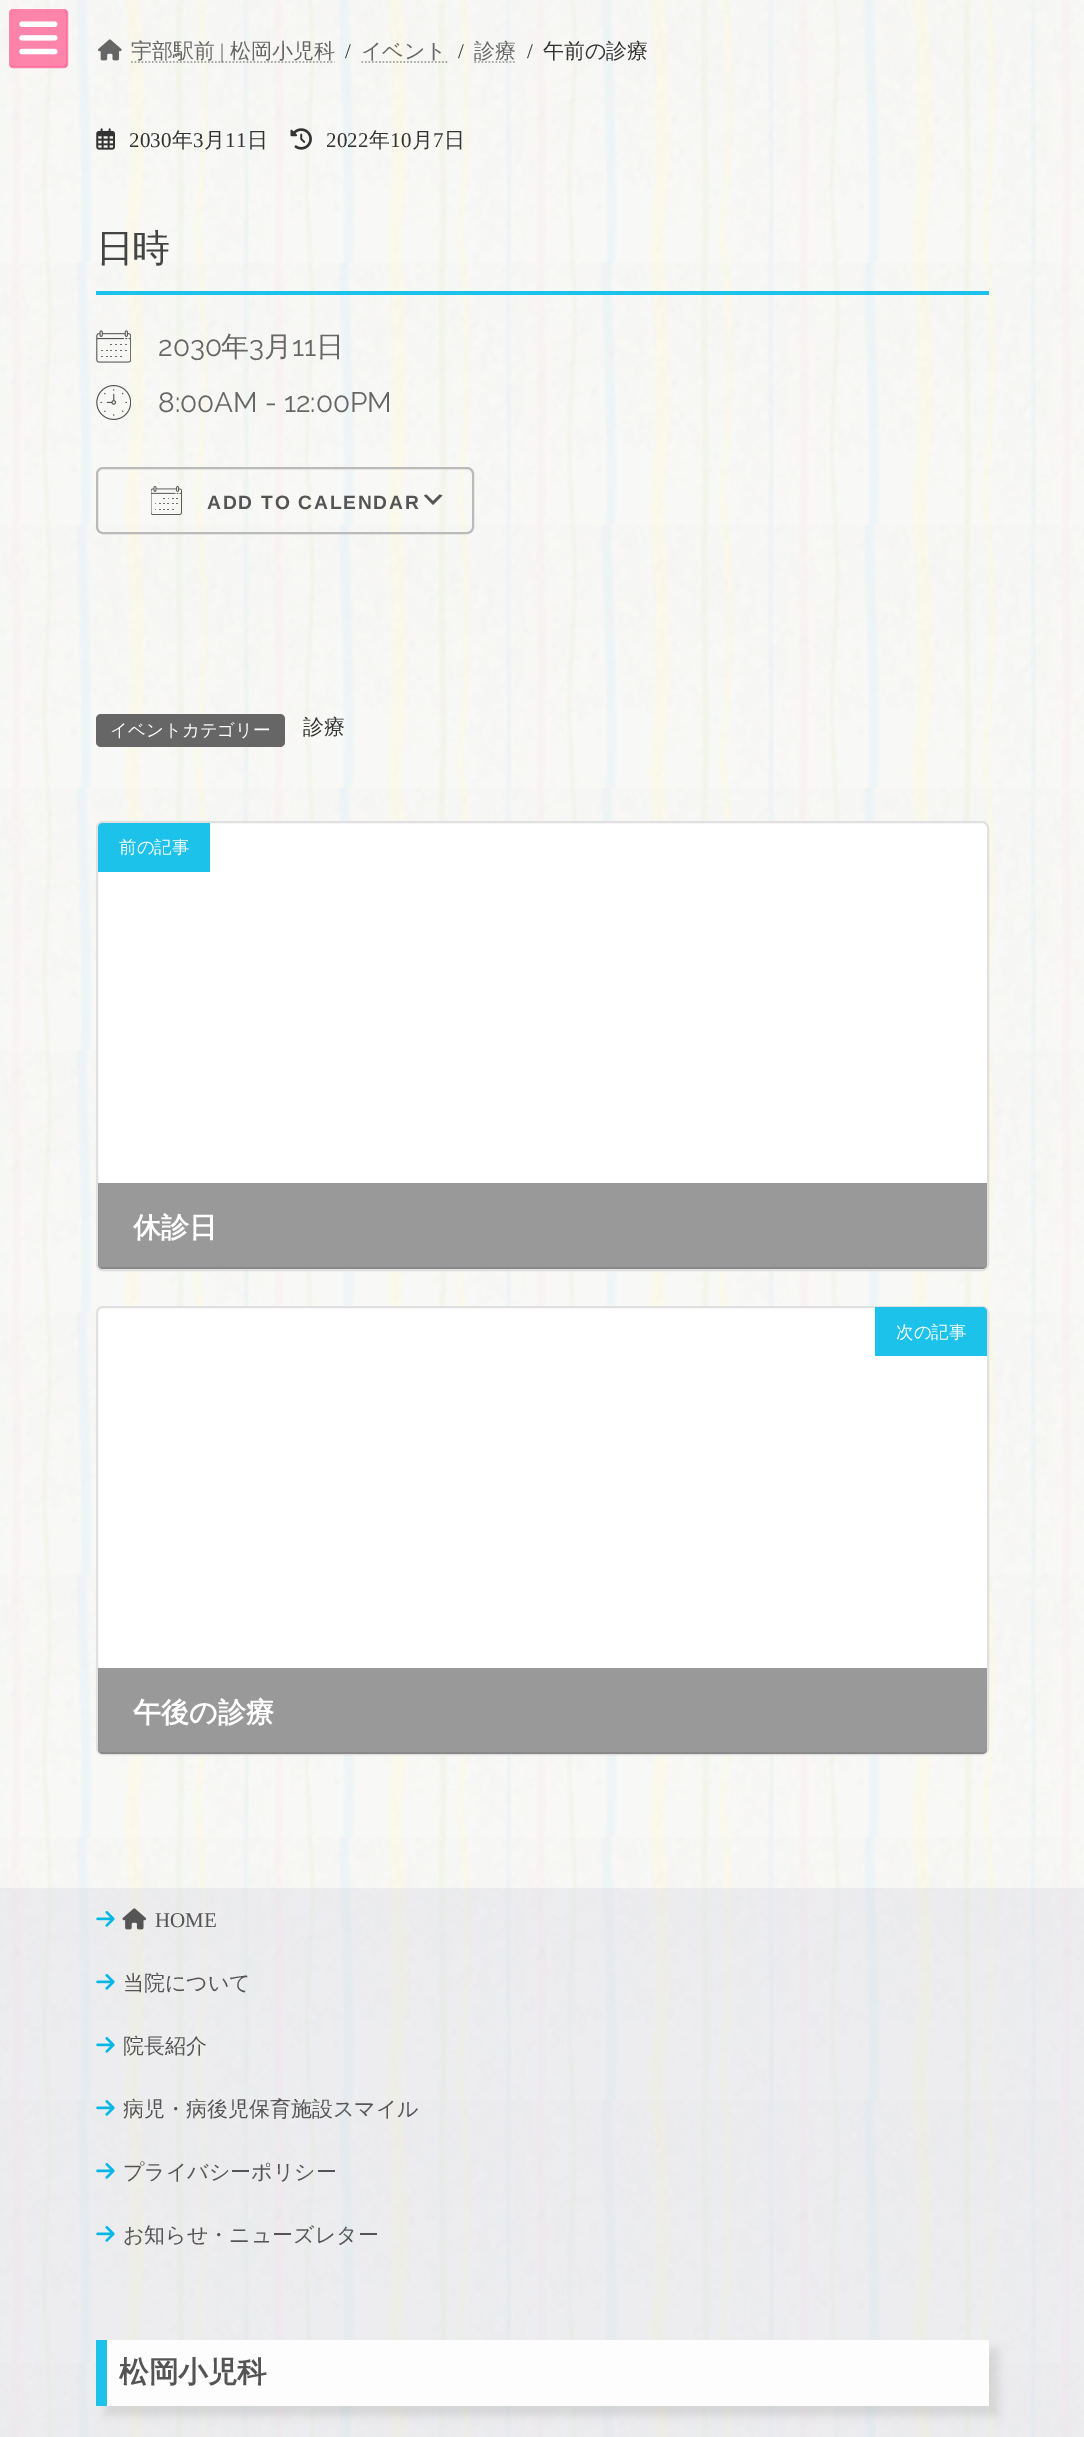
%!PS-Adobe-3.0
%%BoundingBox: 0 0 1084 2437
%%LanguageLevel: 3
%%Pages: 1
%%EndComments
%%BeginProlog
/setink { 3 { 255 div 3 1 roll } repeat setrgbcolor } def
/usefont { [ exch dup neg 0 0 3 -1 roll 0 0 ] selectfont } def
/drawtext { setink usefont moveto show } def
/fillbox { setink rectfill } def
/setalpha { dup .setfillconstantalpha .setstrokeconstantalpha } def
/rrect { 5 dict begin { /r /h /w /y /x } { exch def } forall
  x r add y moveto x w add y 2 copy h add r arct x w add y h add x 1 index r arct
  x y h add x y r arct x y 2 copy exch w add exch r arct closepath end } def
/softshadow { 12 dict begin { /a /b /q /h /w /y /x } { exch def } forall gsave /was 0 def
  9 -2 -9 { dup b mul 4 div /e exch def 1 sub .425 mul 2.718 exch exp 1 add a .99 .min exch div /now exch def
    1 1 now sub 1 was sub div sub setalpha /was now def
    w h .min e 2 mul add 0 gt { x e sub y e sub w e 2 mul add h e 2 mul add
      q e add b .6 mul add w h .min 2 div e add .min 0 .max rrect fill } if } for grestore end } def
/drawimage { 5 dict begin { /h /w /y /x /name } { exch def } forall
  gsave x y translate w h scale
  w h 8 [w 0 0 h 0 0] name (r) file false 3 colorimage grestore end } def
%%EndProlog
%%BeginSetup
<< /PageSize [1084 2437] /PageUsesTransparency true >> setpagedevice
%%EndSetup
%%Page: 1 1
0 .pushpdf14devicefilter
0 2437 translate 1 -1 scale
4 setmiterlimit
0 0 1084 2437 255 255 255 fillbox
(assets/img1.rgb) 0 0 1084 2437 drawimage
0.8 setalpha
255 103 152 setink
2 setlinewidth
10 10 57 57 3 rrect stroke
11 11 56 56 255 103 152 fillbox
1 setalpha
(assets/img2.rgb) 19 21 39 34 drawimage
(assets/img3.rgb) 98 39 24 22 drawimage
(宇部駅前) 131 58 /WenQuanYiZenHei-Medium 21 102 102 102 drawtext
0.3 setalpha
0 0 0 setink
1.8 setlinewidth
[1.75 1.75] 0 setdash
131 62 moveto 334.5 62 lineto stroke
1 setalpha
(|) 220 58 /LiberationSerif-Regular 21 102 102 102 drawtext
(松岡小児科) 230 58 /WenQuanYiZenHei-Medium 21 102 102 102 drawtext
(/) 345 58 /LiberationSerif-Regular 21 51 51 51 drawtext
(イベント) 361 58 /WenQuanYiZenHei-Medium 21 102 102 102 drawtext
0.3 setalpha
0 0 0 setink
361.5 62 moveto 447.5 62 lineto stroke
1 setalpha
(/) 458 58 /LiberationSerif-Regular 21 51 51 51 drawtext
(診療) 474 58 /WenQuanYiZenHei-Medium 21 102 102 102 drawtext
0.3 setalpha
0 0 0 setink
474.5 62 moveto 516.5 62 lineto stroke
1 setalpha
(/) 527 58 /LiberationSerif-Regular 21 51 51 51 drawtext
(午前の診療) 543 58 /WenQuanYiZenHei-Medium 21 51 51 51 drawtext
(assets/img4.rgb) 96 128 19 22 drawimage
(2030) 129 147 /LiberationSerif-Regular 21 51 51 51 drawtext
(年) 172 147 /WenQuanYiZenHei-Medium 21 51 51 51 drawtext
(3) 193 147 /LiberationSerif-Regular 21 51 51 51 drawtext
(月) 204 147 /WenQuanYiZenHei-Medium 21 51 51 51 drawtext
(11) 225 147 /LiberationSerif-Regular 21 51 51 51 drawtext
(日) 247 147 /WenQuanYiZenHei-Medium 21 51 51 51 drawtext
(assets/img5.rgb) 290 128 22 22 drawimage
(2022) 326 147 /LiberationSerif-Regular 21 51 51 51 drawtext
(年) 369 147 /WenQuanYiZenHei-Medium 21 51 51 51 drawtext
(10) 390 147 /LiberationSerif-Regular 21 51 51 51 drawtext
(月) 412 147 /WenQuanYiZenHei-Medium 21 51 51 51 drawtext
(7) 433 147 /LiberationSerif-Regular 21 51 51 51 drawtext
(日) 444 147 /WenQuanYiZenHei-Medium 21 51 51 51 drawtext
96 291 893 4 29 194 234 fillbox
/WenQuanYiZenHei-Medium 38 usefont
68 68 68 setink
96 261 moveto -2 0 (日時) ashow
(assets/img6.rgb) 96 330 35 33 drawimage
(2030) 158 356 /Raleway-Regular 28 102 102 102 drawtext
(年) 221 356 /WenQuanYiZenHei-Medium 28 102 102 102 drawtext
(3) 249 356 /Raleway-Regular 28 102 102 102 drawtext
(月) 264 356 /WenQuanYiZenHei-Medium 28 102 102 102 drawtext
(11) 292 356 /Raleway-Regular 28 102 102 102 drawtext
(日) 316 356 /WenQuanYiZenHei-Medium 28 102 102 102 drawtext
(assets/img7.rgb) 96 385 35 35 drawimage
(8:00AM - 12:00PM) 158 412 /Raleway-Regular 28 102 102 102 drawtext
85 85 85 setink
426.5 494.5 moveto 433 501 lineto 439.5 494.5 lineto 442.5 495.5 lineto 433 505 lineto 424 495.5 lineto closepath fill
186 186 186 setink
2 setlinewidth
[] 0 setdash
97 468 376 65 6 rrect stroke
(assets/img8.rgb) 151 486 31 29 drawimage
/LiberationSans-Bold 19.25 usefont
84 84 84 setink
207 509 moveto 1.75 0 (ADD TO CALENDAR) ashow
102 102 102 setink
96 714 189 33 5 rrect fill
(イベントカテゴリー) 110 736 /WenQuanYiZenHei-Medium 17.5 255 255 255 drawtext
(診療) 303 734 /WenQuanYiZenHei-Medium 21 51 51 51 drawtext
255 255 255 setink
96 821 893 450 7 rrect fill
0.12 setalpha
0 0 0 setink
97 822 891 448 6 rrect stroke
gsave
98 823 889 446 5 rrect clip newpath
1 setalpha
98 1267 889 2 229 229 229 fillbox
grestore
1 setalpha
29 194 234 setink
103 823 moveto 210 823 lineto 210 872 lineto 98 872 lineto 98 828 lineto 98 825 100 823 103 823 curveto closepath fill
(前の記事) 119 853 /WenQuanYiZenHei-Medium 17.5 255 255 255 drawtext
0.4 setalpha
0 0 0 setink
98 1183 moveto 987 1183 lineto 987 1264 lineto 987 1267 985 1269 982 1269 curveto 103 1269 lineto 100 1269 98 1267 98 1264 curveto closepath fill
1 setalpha
(休診日) 133 1237 /WenQuanYiZenHei-Bold 28 255 255 255 drawtext
96 1306 893 449 7 rrect fill
0.12 setalpha
0 0 0 setink
97 1307 891 447 6 rrect stroke
gsave
98 1307 889 447 5 rrect clip newpath
1 setalpha
98 1752 889 2 229 229 229 fillbox
grestore
1 setalpha
29 194 234 setink
875 1307 moveto 982 1307 lineto 985 1307 987 1309 987 1312 curveto 987 1356 lineto 875 1356 lineto closepath fill
(次の記事) 896 1338 /WenQuanYiZenHei-Medium 17.5 255 255 255 drawtext
0.4 setalpha
0 0 0 setink
98 1668 moveto 987 1668 lineto 987 1749 lineto 987 1752 985 1754 982 1754 curveto 103 1754 lineto 100 1754 98 1752 98 1749 curveto closepath fill
1 setalpha
(午後の診療) 133 1722 /WenQuanYiZenHei-Bold 28 255 255 255 drawtext
0.31 setalpha
0 1888 1084 549 211 212 224 fillbox
1 setalpha
(assets/img9.rgb) 96 1911 19 16 drawimage
(assets/img10.rgb) 122 1908 25 22 drawimage
(HOME) 155 1927 /LiberationSerif-Regular 21 84 84 84 drawtext
(assets/img11.rgb) 96 1974 19 16 drawimage
(当院について) 123 1990 /WenQuanYiZenHei-Medium 21 84 84 84 drawtext
(assets/img12.rgb) 96 2037 19 16 drawimage
(院長紹介) 123 2053 /WenQuanYiZenHei-Medium 21 84 84 84 drawtext
(assets/img13.rgb) 96 2100 19 16 drawimage
(病児・病後児保育施設スマイル) 123 2116 /WenQuanYiZenHei-Medium 21 84 84 84 drawtext
(assets/img14.rgb) 96 2163 19 16 drawimage
(プライバシーポリシー) 123 2179 /WenQuanYiZenHei-Medium 21 84 84 84 drawtext
(assets/img15.rgb) 96 2226 19 16 drawimage
(お知らせ・ニューズレター) 123 2242 /WenQuanYiZenHei-Medium 21 84 84 84 drawtext
0 0 0 setink
105 2349 893 66 0 4.5 0.1 softshadow
107 2340 882 66 253 253 253 fillbox
96 2340 11 66 29 194 234 fillbox
(松岡小児科) 119 2382 /WenQuanYiZenHei-Bold 29.5 84 84 84 drawtext
.poppdf14devicefilter showpage
%%EOF
